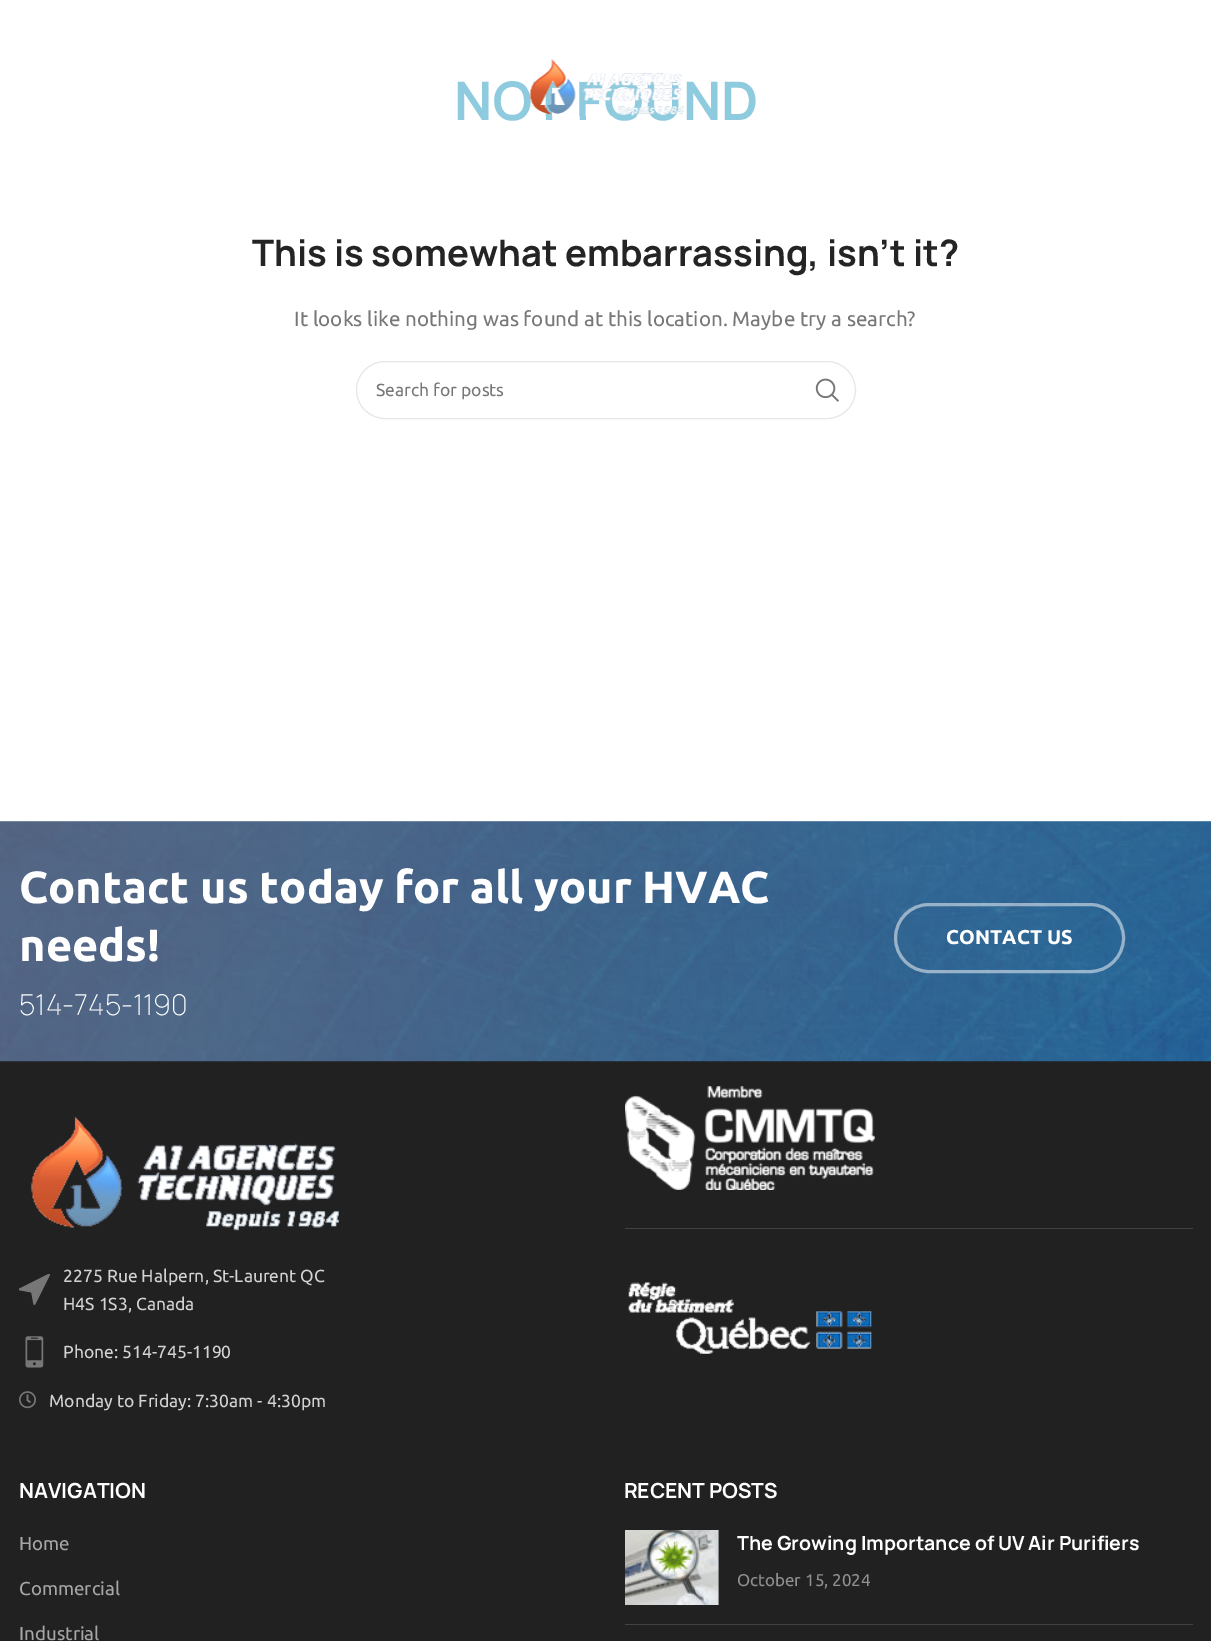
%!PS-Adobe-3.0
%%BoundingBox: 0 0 1211 1641
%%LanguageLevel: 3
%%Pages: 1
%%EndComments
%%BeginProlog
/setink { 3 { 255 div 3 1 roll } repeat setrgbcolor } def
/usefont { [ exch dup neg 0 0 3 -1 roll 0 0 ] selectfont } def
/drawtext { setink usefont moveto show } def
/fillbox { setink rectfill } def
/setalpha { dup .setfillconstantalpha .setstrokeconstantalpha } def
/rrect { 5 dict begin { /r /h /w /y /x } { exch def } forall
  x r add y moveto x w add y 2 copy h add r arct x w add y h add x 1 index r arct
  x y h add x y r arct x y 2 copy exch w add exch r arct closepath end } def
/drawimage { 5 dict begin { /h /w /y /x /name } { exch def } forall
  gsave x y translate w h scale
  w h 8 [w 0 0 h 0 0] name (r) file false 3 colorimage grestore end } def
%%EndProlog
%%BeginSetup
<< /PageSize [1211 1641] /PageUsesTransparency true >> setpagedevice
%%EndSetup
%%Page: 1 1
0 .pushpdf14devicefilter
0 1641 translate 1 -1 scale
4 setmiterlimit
0 0 1211 1641 255 255 255 fillbox
(NOT FOUND) 454 120 /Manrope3-Bold 51 142 203 222 drawtext
(assets/img1.rgb) 529 59 155 57 drawimage
(This is somewhat embarrassing, isn’t it?) 252 266 /Manrope3-Bold 35 36 36 36 drawtext
(It looks like nothing was found at this location. Maybe try a search?) 294 326 /Ubuntu-Regular 20.6 119 119 119 drawtext
230 230 230 setink
356.5 361.5 499 57 28.5 rrect stroke
(Search for posts) 376 396 /Ubuntu-Regular 17.5 119 119 119 drawtext
(assets/img2.rgb) 815 378 24 24 drawimage
0 1061 1211 580 33 33 33 fillbox
(assets/img3.rgb) 0 821 1211 241 drawimage
(Contact us today for all your HVAC) 19 903 /Ubuntu-Bold 45 255 255 255 drawtext
(needs!) 19 961 /Ubuntu-Bold 45 255 255 255 drawtext
(514-745-1190) 19 1015 /Manrope3-Thin 27.5 255 255 255 drawtext
0.5 setalpha
3 setlinewidth
895.5 904.5 228 67 33.5 rrect stroke
1 setalpha
(CONTACT US) 946 944 /Ubuntu-Bold 20 255 255 255 drawtext
(assets/img4.rgb) 31 1117 308 114 drawimage
(assets/img5.rgb) 19 1274 31 31 drawimage
(2275 Rue Halpern, St-Laurent QC) 63 1282 /Ubuntu-Regular 17.5 211 211 211 drawtext
(H4S 1S3, Canada) 63 1310 /Ubuntu-Regular 17.5 211 211 211 drawtext
(assets/img6.rgb) 25 1336 19 32 drawimage
(Phone: 514-745-1190) 63 1358 /Ubuntu-Regular 17.5 211 211 211 drawtext
(assets/img7.rgb) 19 1391 17 18 drawimage
(Monday to Friday: 7:30am - 4:30pm) 49 1407 /Ubuntu-Regular 17.5 211 211 211 drawtext
625 1228 568 1 66 66 66 fillbox
(assets/img8.rgb) 625 1086 250 104 drawimage
(assets/img9.rgb) 628 1282 244 72 drawimage
(NAVIGATION) 19 1498 /Manrope3-Bold 20 255 255 255 drawtext
(Home) 19 1550 /Ubuntu-Regular 18.75 166 166 166 drawtext
(Commercial) 19 1595 /Ubuntu-Regular 18.75 166 166 166 drawtext
(Industrial) 19 1640 /Ubuntu-Regular 18.75 166 166 166 drawtext
(RECENT POSTS) 624 1498 /Manrope3-Bold 20 255 255 255 drawtext
625 1624 568 1 66 66 66 fillbox
(assets/img10.rgb) 625 1530 94 75 drawimage
(The Growing Importance of UV Air Purifiers) 737 1550 /Manrope3-Bold 18.75 255 255 255 drawtext
(October 15, 2024) 737 1586 /Ubuntu-Regular 17 144 144 144 drawtext
.poppdf14devicefilter showpage
%%EOF
